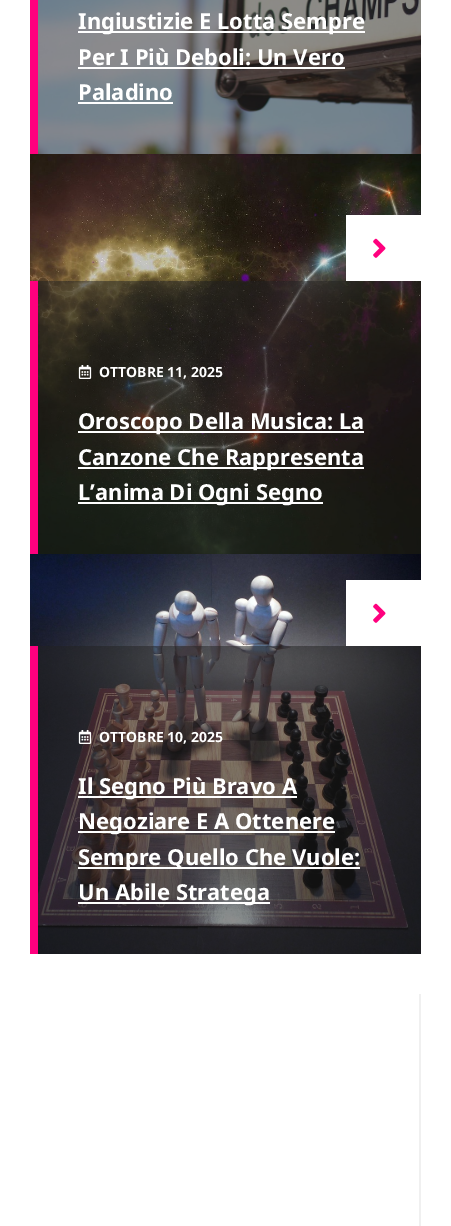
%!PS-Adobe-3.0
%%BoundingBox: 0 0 451 1226
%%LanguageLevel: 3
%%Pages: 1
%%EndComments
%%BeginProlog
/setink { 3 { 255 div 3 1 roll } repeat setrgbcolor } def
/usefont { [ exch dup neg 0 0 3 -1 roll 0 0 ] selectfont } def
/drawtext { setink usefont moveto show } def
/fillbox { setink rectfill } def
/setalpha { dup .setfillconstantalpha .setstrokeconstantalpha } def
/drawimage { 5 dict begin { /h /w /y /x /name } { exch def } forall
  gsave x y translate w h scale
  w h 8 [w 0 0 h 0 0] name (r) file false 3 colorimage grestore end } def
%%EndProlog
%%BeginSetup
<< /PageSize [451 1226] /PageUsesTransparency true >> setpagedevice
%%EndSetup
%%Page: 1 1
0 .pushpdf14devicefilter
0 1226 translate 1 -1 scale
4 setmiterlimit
0 0 451 1226 255 255 255 fillbox
(assets/img1.rgb) 38 0 383 154 drawimage
30 0 8 154 255 0 126 fillbox
78 31 287 2 255 255 255 fillbox
(Ingiustizie E Lotta Sempre) 78 29 /NotoSans-Bold 22 255 255 255 drawtext
(Per I Più Deboli: Un Vero) 78 65 /NotoSans-Bold 22 255 255 255 drawtext
78 67 267 2 255 255 255 fillbox
(Paladino) 78 100 /NotoSans-Bold 22 255 255 255 drawtext
78 102 95 2 255 255 255 fillbox
(assets/img2.rgb) 30 154 391 400 drawimage
346 215 75 66 255 255 255 fillbox
(assets/img3.rgb) 373 238 13 20 drawimage
0.51 setalpha
38 281 383 273 33 33 33 fillbox
1 setalpha
30 281 8 273 255 0 126 fillbox
(assets/img4.rgb) 78 365 14 14 drawimage
(OTTOBRE 11, 2025) 99 377 /NotoSans-Bold 14 255 255 255 drawtext
78 431 286 2 255 255 255 fillbox
(Oroscopo Della Musica: La) 78 429 /NotoSans-Bold 22 255 255 255 drawtext
78 467 286 2 255 255 255 fillbox
(Canzone Che Rappresenta) 78 465 /NotoSans-Bold 22 255 255 255 drawtext
78 502 245 2 255 255 255 fillbox
(L’anima Di Ogni Segno) 78 500 /NotoSans-Bold 22 255 255 255 drawtext
(assets/img5.rgb) 30 554 391 400 drawimage
346 580 75 66 255 255 255 fillbox
(assets/img3.rgb) 373 603 13 20 drawimage
0.51 setalpha
38 646 383 308 33 33 33 fillbox
1 setalpha
30 646 8 308 255 0 126 fillbox
(assets/img6.rgb) 78 730 14 14 drawimage
(OTTOBRE 10, 2025) 99 742 /NotoSans-Bold 14 255 255 255 drawtext
78 796 219 2 255 255 255 fillbox
(Il Segno Più Bravo A) 78 794 /NotoSans-Bold 22 255 255 255 drawtext
78 831 257 2 255 255 255 fillbox
(Negoziare E A Ottenere) 78 829 /NotoSans-Bold 22 255 255 255 drawtext
78 867 282 2 255 255 255 fillbox
(Sempre Quello Che Vuole:) 78 865 /NotoSans-Bold 22 255 255 255 drawtext
78 902 192 2 255 255 255 fillbox
(Un Abile Stratega) 78 900 /NotoSans-Bold 22 255 255 255 drawtext
419 994 2 232 240 240 240 fillbox
.poppdf14devicefilter showpage
%%EOF
